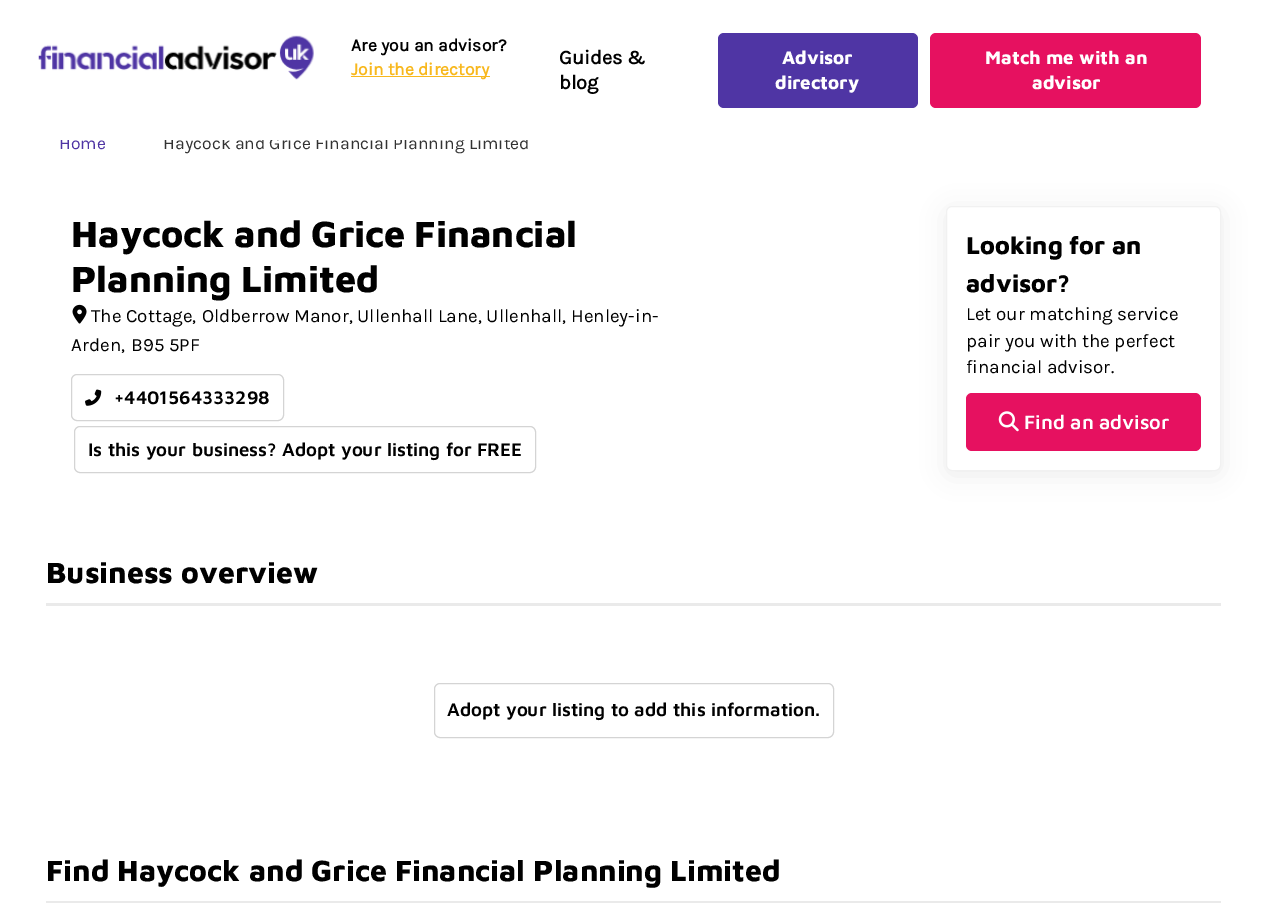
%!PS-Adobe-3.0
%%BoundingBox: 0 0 1267 903
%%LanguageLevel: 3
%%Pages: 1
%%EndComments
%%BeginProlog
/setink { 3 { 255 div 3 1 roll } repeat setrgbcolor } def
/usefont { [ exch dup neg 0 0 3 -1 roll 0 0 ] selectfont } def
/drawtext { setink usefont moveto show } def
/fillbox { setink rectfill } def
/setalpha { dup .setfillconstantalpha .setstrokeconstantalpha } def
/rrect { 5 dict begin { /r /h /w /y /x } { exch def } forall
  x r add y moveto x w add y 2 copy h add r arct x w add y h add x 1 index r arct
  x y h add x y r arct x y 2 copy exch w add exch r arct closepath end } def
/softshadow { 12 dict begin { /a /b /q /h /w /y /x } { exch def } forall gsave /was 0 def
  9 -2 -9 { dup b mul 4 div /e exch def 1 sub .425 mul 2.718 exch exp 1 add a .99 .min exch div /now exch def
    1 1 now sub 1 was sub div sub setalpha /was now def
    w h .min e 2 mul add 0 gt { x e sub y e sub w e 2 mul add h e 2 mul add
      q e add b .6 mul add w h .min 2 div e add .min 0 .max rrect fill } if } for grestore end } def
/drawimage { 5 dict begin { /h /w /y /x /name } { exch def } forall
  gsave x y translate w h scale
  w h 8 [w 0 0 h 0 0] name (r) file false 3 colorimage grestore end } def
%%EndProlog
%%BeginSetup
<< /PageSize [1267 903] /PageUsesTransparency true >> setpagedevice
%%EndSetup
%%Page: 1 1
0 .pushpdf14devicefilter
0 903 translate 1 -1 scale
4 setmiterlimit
0 0 1267 903 255 255 255 fillbox
(Home) 59 149 /Karla-Regular 17.5 79 53 164 drawtext
(Haycock and Grice Financial Planning Limited) 163 149 /Karla-Regular 17.5 51 51 51 drawtext
60 136 469 4 255 255 255 fillbox
(assets/img1.rgb) 38 35 276 45 drawimage
(Are you an advisor?) 351 51 /Karla-Bold 17.5 0 0 0 drawtext
351 76 139 1 248 184 30 fillbox
(Join the directory) 351 75 /Karla-Bold 17.5 248 184 30 drawtext
(Guides &) 559 64 /Karla-Bold 20 0 0 0 drawtext
(blog) 559 89 /Karla-Bold 20 0 0 0 drawtext
79 53 164 setink
718 33 200 75 6 rrect fill
(Advisor) 782 64 /MavenPro-ExtraBold 18.75 255 255 255 drawtext
(directory) 775 89 /MavenPro-ExtraBold 18.75 255 255 255 drawtext
230 17 96 setink
930 33 271 75 6 rrect fill
(Match me with an) 985 64 /MavenPro-ExtraBold 18.75 255 255 255 drawtext
(advisor) 1032 89 /MavenPro-ExtraBold 18.75 255 255 255 drawtext
(Haycock) 71 247 /MavenPro-ExtraBold 37.5 0 0 0 drawtext
(and) 234 247 /MavenPro-ExtraBold 37.5 0 0 0 drawtext
(Grice) 311 247 /MavenPro-ExtraBold 37.5 0 0 0 drawtext
(Financial) 414 247 /MavenPro-ExtraBold 37.5 0 0 0 drawtext
(Planning) 71 292 /MavenPro-ExtraBold 37.5 0 0 0 drawtext
(Limited) 241 292 /MavenPro-ExtraBold 37.5 0 0 0 drawtext
(assets/img2.rgb) 72 304 15 20 drawimage
(The Cottage,) 91 322 /Karla-Regular 18.75 0 0 0 drawtext
(Oldberrow Manor, Ullenhall Lane, Ullenhall,) 202 322 /Karla-Regular 18.75 0 0 0 drawtext
(Henley-in-) 571 322 /Karla-Regular 18.75 0 0 0 drawtext
(Arden,) 71 351 /Karla-Regular 18.75 0 0 0 drawtext
(B95 5PF) 131 351 /Karla-Regular 18.75 0 0 0 drawtext
212 212 212 setink
71.5 374.5 212 46 5.5 rrect stroke
(assets/img3.rgb) 85 389 17 17 drawimage
(+4401564333298) 114 404 /MavenPro-SemiBold 18.75 0 0 0 drawtext
212 212 212 setink
74.5 426.5 461 46 5.5 rrect stroke
(Is this your business? Adopt your listing for FREE) 88 456 /MavenPro-SemiBold 18.75 0 0 0 drawtext
gsave
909 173 moveto 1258 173 lineto 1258 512 lineto 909 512 lineto closepath 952 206 moveto 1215 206 lineto 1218.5 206 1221 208.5 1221 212 curveto 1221 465 lineto 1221 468.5 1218.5 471 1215 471 curveto 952 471 lineto 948.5 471 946 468.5 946 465 curveto 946 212 lineto 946 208.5 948.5 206 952 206 curveto closepath eoclip newpath
946 210 275 265 6 12 0.07 softshadow
grestore
241 241 241 setink
946.5 206.5 274 264 5.5 rrect stroke
(Looking for an) 966 254 /MavenPro-ExtraBold 25 0 0 0 drawtext
(advisor?) 966 292 /MavenPro-ExtraBold 25 0 0 0 drawtext
(Let our matching service) 966 320 /Karla-Regular 18.75 0 0 0 drawtext
(pair you with the perfect) 966 347 /Karla-Regular 18.75 0 0 0 drawtext
(financial advisor.) 966 373 /Karla-Regular 18.75 0 0 0 drawtext
230 17 96 setink
966 393 235 58 6 rrect fill
(assets/img4.rgb) 998 411 21 21 drawimage
(Find an advisor) 1024 429 /MavenPro-SemiBold 20 255 255 255 drawtext
46 603 1175 3 234 234 234 fillbox
(Business overview) 46 583 /MavenPro-ExtraBold 30 0 0 0 drawtext
212 212 212 setink
434.5 683.5 399 54 5.5 rrect stroke
(Adopt your listing to add this information.) 447 716 /MavenPro-SemiBold 18.75 0 0 0 drawtext
46 901 1175 2 234 234 234 fillbox
(Find Haycock and Grice Financial Planning Limited) 46 881 /MavenPro-ExtraBold 30 0 0 0 drawtext
.poppdf14devicefilter showpage
%%EOF
